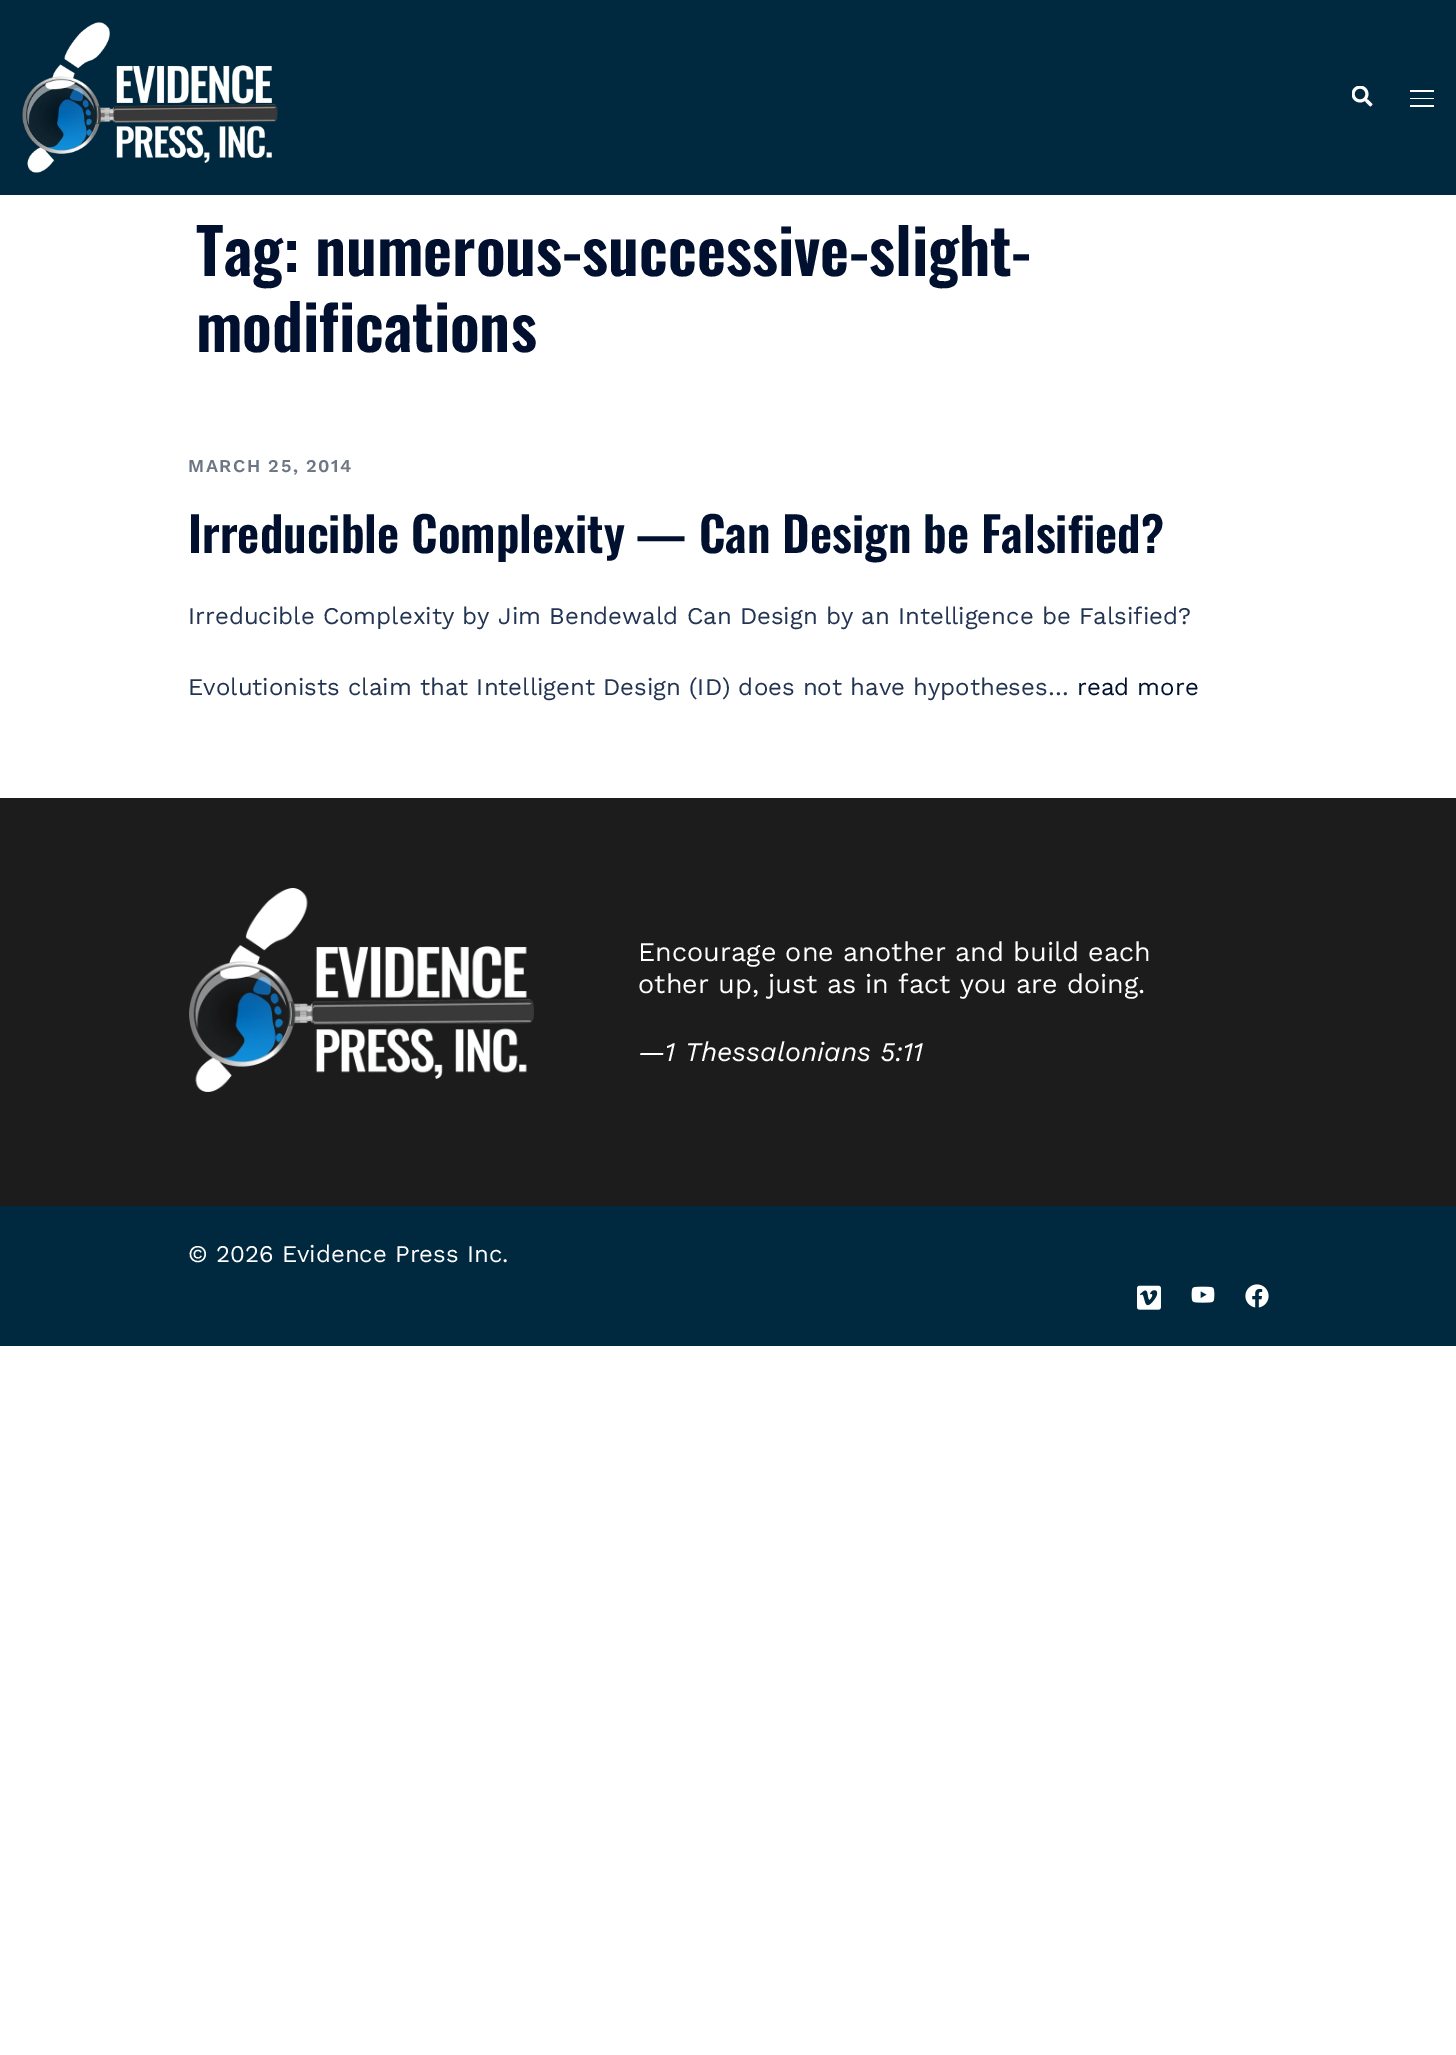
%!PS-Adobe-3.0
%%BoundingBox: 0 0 1456 2055
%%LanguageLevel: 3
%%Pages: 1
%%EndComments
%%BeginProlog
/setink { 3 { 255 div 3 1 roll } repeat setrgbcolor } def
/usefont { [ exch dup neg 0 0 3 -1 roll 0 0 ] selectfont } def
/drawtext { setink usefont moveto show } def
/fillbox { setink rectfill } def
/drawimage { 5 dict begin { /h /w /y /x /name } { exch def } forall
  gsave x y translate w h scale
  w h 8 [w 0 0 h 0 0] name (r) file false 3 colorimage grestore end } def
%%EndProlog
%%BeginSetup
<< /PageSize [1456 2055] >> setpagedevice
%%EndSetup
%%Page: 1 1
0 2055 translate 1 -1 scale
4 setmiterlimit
0 0 1456 2055 255 255 255 fillbox
0 0 1456 195 0 41 63 fillbox
(assets/img1.rgb) 22 22 256 151 drawimage
(assets/img2.rgb) 1352 86 21 21 drawimage
1410 90 24 2 255 255 255 fillbox
1410 98 24 1 255 255 255 fillbox
1410 105 24 2 255 255 255 fillbox
(Tag: numerous-successive-slight-) 196 276 /Oswald-SemiBold 63 0 16 46 drawtext
(modifications) 196 352 /Oswald-SemiBold 63 0 16 46 drawtext
/WorkSans-SemiBold 18 usefont
109 118 133 setink
188 472 moveto 1.5 0 (MARCH 25, 2014) ashow
(Irreducible Complexity — Can Design be Falsified?) 188 553 /Oswald-SemiBold 48 0 16 46 drawtext
(Irreducible Complexity by Jim Bendewald Can Design by an Intelligence be Falsified?) 188 624 /WorkSans-Regular 24 35 52 82 drawtext
(Evolutionists claim that Intelligent Design \(ID\) does not have hypotheses…) 188 695 /WorkSans-Regular 24 35 52 82 drawtext
(read more) 1077 695 /WorkSans-Regular 24 0 16 46 drawtext
0 798 1456 408 28 28 28 fillbox
(assets/img3.rgb) 189 888 345 204 drawimage
(Encourage one another and build each) 638 961 /WorkSans-Regular 27 255 255 255 drawtext
(other up, just as in fact you are doing.) 638 993 /WorkSans-Regular 27 255 255 255 drawtext
(—1 Thessalonians 5:11) 638 1061 /WorkSans-Italic 27 255 255 255 drawtext
0 1206 1456 140 0 41 63 fillbox
(© 2026 Evidence Press Inc.) 188 1262 /WorkSans-Regular 24 255 255 255 drawtext
(assets/img4.rgb) 1137 1285 24 25 drawimage
(assets/img5.rgb) 1191 1286 24 17 drawimage
(assets/img6.rgb) 1245 1284 24 24 drawimage
showpage
%%EOF
